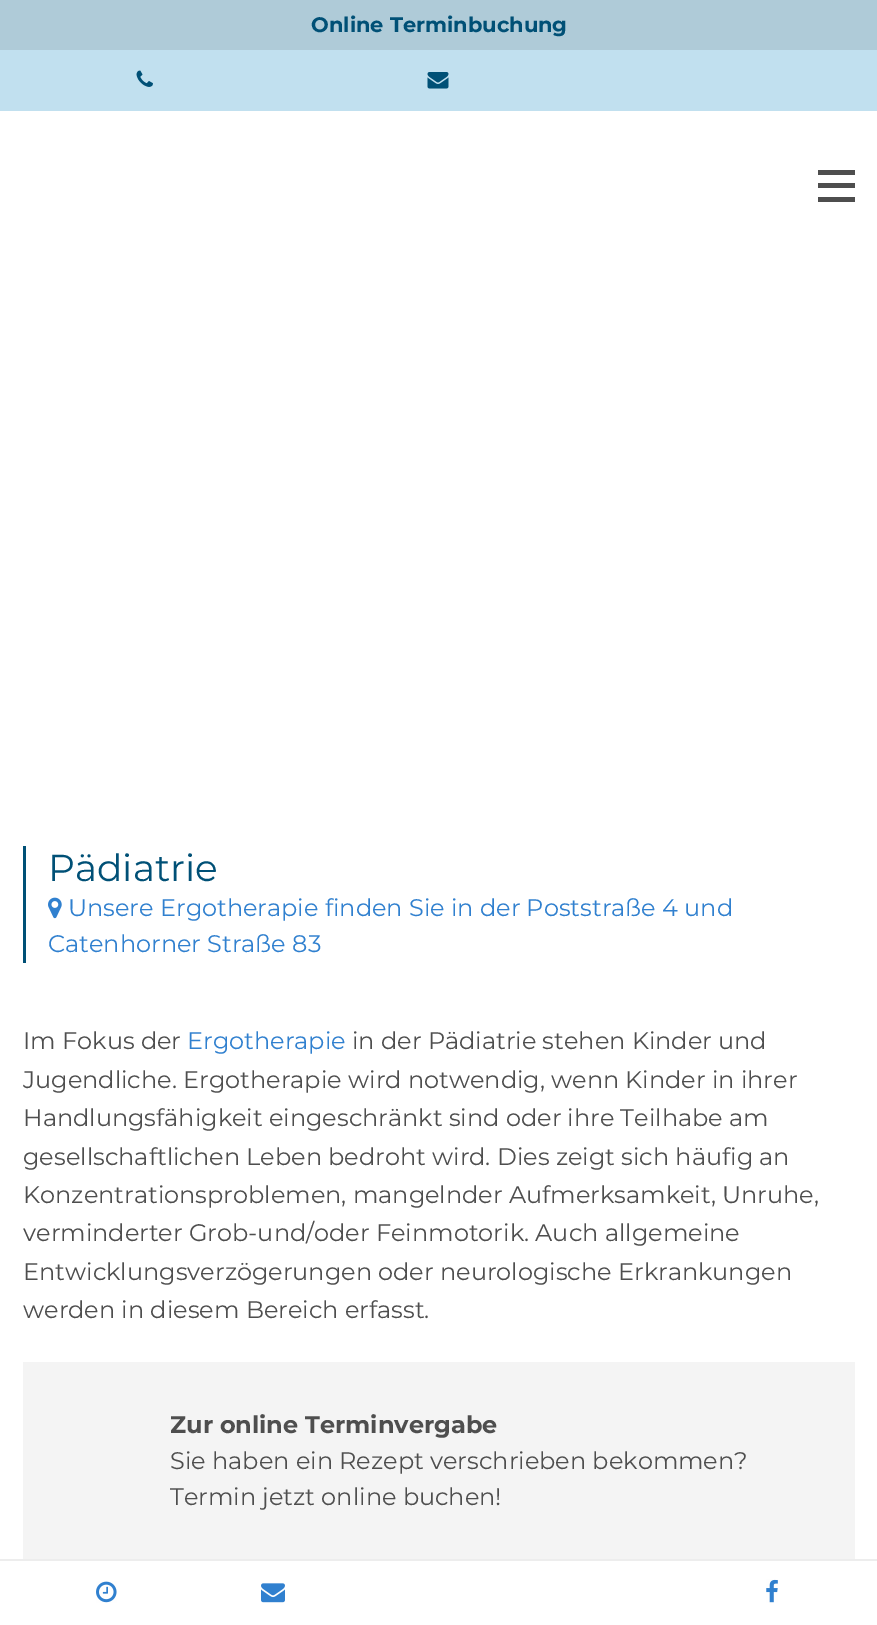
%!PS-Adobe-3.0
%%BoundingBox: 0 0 877 1625
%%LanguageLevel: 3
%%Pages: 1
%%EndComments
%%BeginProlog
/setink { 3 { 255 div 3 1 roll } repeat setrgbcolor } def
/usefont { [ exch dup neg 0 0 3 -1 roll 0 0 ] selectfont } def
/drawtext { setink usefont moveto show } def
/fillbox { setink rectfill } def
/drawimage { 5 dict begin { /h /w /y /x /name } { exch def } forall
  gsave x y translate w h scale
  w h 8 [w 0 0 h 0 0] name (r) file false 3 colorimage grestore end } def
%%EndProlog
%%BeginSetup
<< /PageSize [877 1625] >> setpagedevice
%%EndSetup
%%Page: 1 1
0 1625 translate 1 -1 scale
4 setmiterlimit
0 0 877 1625 255 255 255 fillbox
0 50 877 61 193 224 239 fillbox
0 0 877 50 175 203 216 fillbox
(Online Terminbuchung) 311 32 /Montserrat-Bold 21 0 80 118 drawtext
(assets/img1.rgb) 136 70 17 17 drawimage
(assets/img2.rgb) 427 72 22 17 drawimage
818 183 37 5 78 78 78 fillbox
818 170 37 5 78 78 78 fillbox
818 197 37 5 78 78 78 fillbox
23 846 3 117 0 80 118 fillbox
(Pädiatrie) 48 881 /Montserrat-Regular 37.5 0 80 118 drawtext
(assets/img3.rgb) 48 897 14 22 drawimage
(Unsere Ergotherapie finden Sie in der Poststraße 4 und) 68 916 /Montserrat-Regular 24 48 128 207 drawtext
(Catenhorner Straße 83) 48 952 /Montserrat-Regular 24 48 128 207 drawtext
(Im Fokus der) 23 1049 /Montserrat-Regular 24 78 78 78 drawtext
(Ergotherapie) 187 1049 /Montserrat-Regular 24 48 128 207 drawtext
(in der Pädiatrie stehen Kinder und) 352 1049 /Montserrat-Regular 24 78 78 78 drawtext
(Jugendliche. Ergotherapie wird notwendig, wenn Kinder in ihrer) 23 1088 /Montserrat-Regular 24 78 78 78 drawtext
(Handlungsfähigkeit eingeschränkt sind oder ihre Teilhabe am) 23 1126 /Montserrat-Regular 24 78 78 78 drawtext
(gesellschaftlichen Leben bedroht wird. Dies zeigt sich häufig an) 23 1165 /Montserrat-Regular 24 78 78 78 drawtext
(Konzentrationsproblemen, mangelnder Aufmerksamkeit, Unruhe,) 23 1203 /Montserrat-Regular 24 78 78 78 drawtext
(verminderter Grob-und/oder Feinmotorik. Auch allgemeine) 23 1241 /Montserrat-Regular 24 78 78 78 drawtext
(Entwicklungsverzögerungen oder neurologische Erkrankungen) 23 1280 /Montserrat-Regular 24 78 78 78 drawtext
(werden in diesem Bereich erfasst.) 23 1318 /Montserrat-Regular 24 78 78 78 drawtext
23 1362 832 197 244 244 244 fillbox
(Zur online Terminvergabe) 170 1433 /Montserrat-Bold 24 78 78 78 drawtext
(Sie haben ein Rezept verschrieben bekommen?) 170 1469 /Montserrat-Regular 24 78 78 78 drawtext
(Termin jetzt online buchen!) 170 1505 /Montserrat-Regular 24 78 78 78 drawtext
0 1559 877 2 237 237 237 fillbox
(assets/img4.rgb) 96 1581 21 22 drawimage
(assets/img5.rgb) 261 1583 24 20 drawimage
(assets/img6.rgb) 766 1579 12 24 drawimage
showpage
%%EOF
